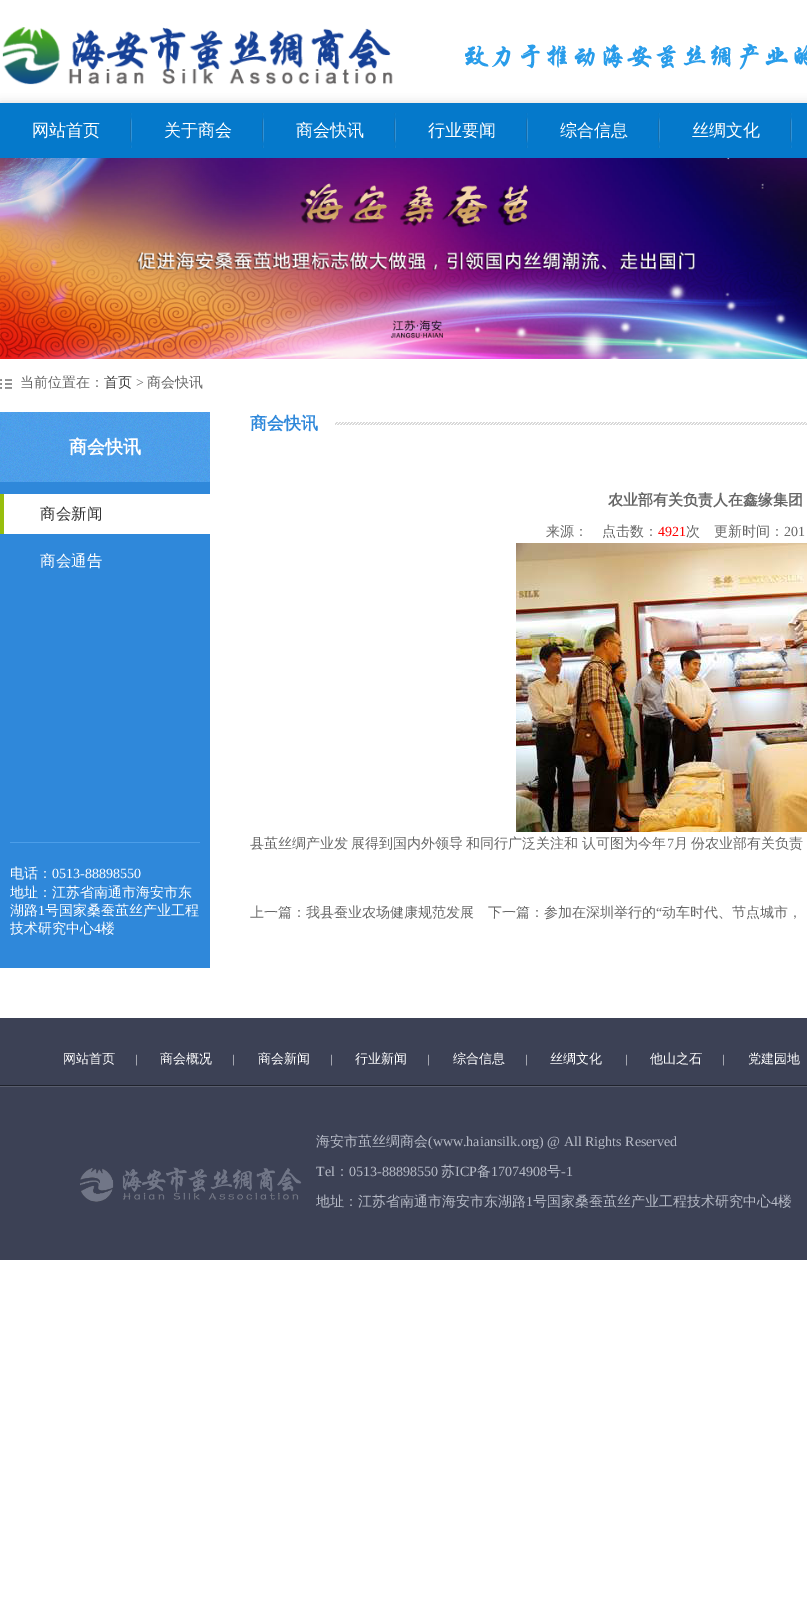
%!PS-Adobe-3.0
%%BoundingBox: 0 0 807 1615
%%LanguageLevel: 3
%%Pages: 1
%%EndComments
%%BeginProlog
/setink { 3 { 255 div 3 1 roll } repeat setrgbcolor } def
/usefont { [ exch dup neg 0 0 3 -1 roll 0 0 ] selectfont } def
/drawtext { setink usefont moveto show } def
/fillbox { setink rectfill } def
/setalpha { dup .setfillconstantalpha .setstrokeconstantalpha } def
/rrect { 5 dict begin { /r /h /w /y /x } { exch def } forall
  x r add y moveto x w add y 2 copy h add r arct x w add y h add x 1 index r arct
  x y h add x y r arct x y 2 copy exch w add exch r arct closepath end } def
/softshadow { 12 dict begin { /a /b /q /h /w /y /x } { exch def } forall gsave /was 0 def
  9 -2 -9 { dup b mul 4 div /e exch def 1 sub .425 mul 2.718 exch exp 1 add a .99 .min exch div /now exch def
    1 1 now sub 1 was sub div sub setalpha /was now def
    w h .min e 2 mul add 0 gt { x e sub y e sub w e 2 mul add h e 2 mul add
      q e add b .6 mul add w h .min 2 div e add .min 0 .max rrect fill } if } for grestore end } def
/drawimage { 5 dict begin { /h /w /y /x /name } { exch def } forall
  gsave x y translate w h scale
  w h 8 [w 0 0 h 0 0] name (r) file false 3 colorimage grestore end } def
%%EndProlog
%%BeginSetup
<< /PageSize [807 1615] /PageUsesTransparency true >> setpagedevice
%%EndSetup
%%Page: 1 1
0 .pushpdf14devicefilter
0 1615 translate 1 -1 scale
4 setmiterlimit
0 0 807 1615 255 255 255 fillbox
(assets/img1.rgb) 2 27 391 58 drawimage
(assets/img2.rgb) 465 43 342 27 drawimage
204 204 204 setink
1 104 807 55 0 5 1 softshadow
0 103 807 55 5 121 203 fillbox
(assets/img3.rgb) 130 113 2 35 drawimage
(网站首页) 32 136 /WenQuanYiZenHei-Medium 17 255 255 255 drawtext
(assets/img3.rgb) 262 113 2 35 drawimage
(关于商会) 164 136 /WenQuanYiZenHei-Medium 17 255 255 255 drawtext
(assets/img3.rgb) 394 113 2 35 drawimage
(商会快讯) 296 136 /WenQuanYiZenHei-Medium 17 255 255 255 drawtext
(assets/img3.rgb) 526 113 2 35 drawimage
(行业要闻) 428 136 /WenQuanYiZenHei-Medium 17 255 255 255 drawtext
(assets/img3.rgb) 658 113 2 35 drawimage
(综合信息) 560 136 /WenQuanYiZenHei-Medium 17 255 255 255 drawtext
(assets/img3.rgb) 790 113 2 35 drawimage
(丝绸文化) 692 136 /WenQuanYiZenHei-Medium 17 255 255 255 drawtext
(assets/img4.rgb) 0 158 807 201 drawimage
(assets/img5.rgb) 0 379 12 10 drawimage
(当前位置在：) 20 387 /WenQuanYiZenHei-Medium 14 102 102 102 drawtext
(首页) 104 387 /WenQuanYiZenHei-Medium 14 51 51 51 drawtext
(>) 136 387 /LiberationSerif-Regular 14 102 102 102 drawtext
(商会快讯) 147 387 /WenQuanYiZenHei-Medium 14 102 102 102 drawtext
0 482 210 486 47 136 218 fillbox
(assets/img6.rgb) 0 412 210 70 drawimage
(商会快讯) 69 453 /WenQuanYiZenHei-Bold 18 255 255 255 drawtext
4 494 206 40 255 255 255 fillbox
0 494 4 40 151 190 13 fillbox
(商会新闻) 40 519 /WenQuanYiZenHei-Medium 15.5 51 51 51 drawtext
(商会通告) 40 566 /WenQuanYiZenHei-Medium 15.5 255 255 255 drawtext
10 842 190 1 76 158 233 fillbox
(电话：) 10 878 /WenQuanYiZenHei-Medium 14 255 255 255 drawtext
(0513-88898550) 52 878 /LiberationSerif-Regular 14 255 255 255 drawtext
(地址：江苏省南通市海安市东) 10 897 /WenQuanYiZenHei-Medium 14 255 255 255 drawtext
(湖路) 10 915 /WenQuanYiZenHei-Medium 14 255 255 255 drawtext
(1) 38 915 /LiberationSerif-Regular 14 255 255 255 drawtext
(号国家桑蚕茧丝产业工程) 45 915 /WenQuanYiZenHei-Medium 14 255 255 255 drawtext
(技术研究中心) 10 933 /WenQuanYiZenHei-Medium 14 255 255 255 drawtext
(4) 94 933 /LiberationSerif-Regular 14 255 255 255 drawtext
(楼) 101 933 /WenQuanYiZenHei-Medium 14 255 255 255 drawtext
(assets/img7.rgb) 335 422 472 3 drawimage
(商会快讯) 250 429 /WenQuanYiZenHei-Bold 17 47 136 218 drawtext
(农业部有关负责人在鑫缘集团) 608 505 /WenQuanYiZenHei-Bold 15 102 102 102 drawtext
(来源：　点击数：) 546 536 /WenQuanYiZenHei-Medium 14 102 102 102 drawtext
(4921) 658 536 /LiberationSerif-Regular 14 255 0 0 drawtext
(次　更新时间：) 686 536 /WenQuanYiZenHei-Medium 14 102 102 102 drawtext
(201) 784 536 /LiberationSerif-Regular 14 102 102 102 drawtext
(assets/img8.rgb) 516 543 291 289 drawimage
/WenQuanYiZenHei-Medium 14 usefont
250 848 moveto -1 0 32 (县茧丝绸产业发 展得到国内外领导 和同行广泛关注和 认可图为今年) widthshow
(7) 667 848 /LiberationSerif-Regular 14 102 102 102 drawtext
/WenQuanYiZenHei-Medium 14 usefont
674 848 moveto -1 0 32 (月 份农业部有关负责) widthshow
(上一篇：我县蚕业农场健康规范发展) 250 917 /WenQuanYiZenHei-Medium 14 102 102 102 drawtext
(下一篇：参加在深圳举行的) 488 917 /WenQuanYiZenHei-Medium 14 102 102 102 drawtext
(“) 656 917 /LiberationSerif-Regular 14 102 102 102 drawtext
(动车时代、节点城市，) 662 917 /WenQuanYiZenHei-Medium 14 102 102 102 drawtext
0 1018 807 242 60 65 85 fillbox
0 1085 807 1 31 34 44 fillbox
(网站首页) 63 1063 /WenQuanYiZenHei-Medium 13 255 255 255 drawtext
(|) 135 1063 /LiberationSerif-Regular 12 255 255 255 drawtext
(商会概况) 160 1063 /WenQuanYiZenHei-Medium 13 255 255 255 drawtext
(|) 232 1063 /LiberationSerif-Regular 12 255 255 255 drawtext
(商会新闻) 258 1063 /WenQuanYiZenHei-Medium 13 255 255 255 drawtext
(|) 330 1063 /LiberationSerif-Regular 12 255 255 255 drawtext
(行业新闻) 355 1063 /WenQuanYiZenHei-Medium 13 255 255 255 drawtext
(|) 427 1063 /LiberationSerif-Regular 12 255 255 255 drawtext
(综合信息) 453 1063 /WenQuanYiZenHei-Medium 13 255 255 255 drawtext
(|) 525 1063 /LiberationSerif-Regular 12 255 255 255 drawtext
(丝绸文化) 550 1063 /WenQuanYiZenHei-Medium 13 255 255 255 drawtext
(|) 625 1063 /LiberationSerif-Regular 12 255 255 255 drawtext
(他山之石) 650 1063 /WenQuanYiZenHei-Medium 13 255 255 255 drawtext
(|) 722 1063 /LiberationSerif-Regular 12 255 255 255 drawtext
(党建园地) 748 1063 /WenQuanYiZenHei-Medium 13 255 255 255 drawtext
0 1086 807 1 89 93 110 fillbox
(assets/img9.rgb) 80 1167 222 35 drawimage
(海安市茧丝绸商会) 316 1146 /WenQuanYiZenHei-Medium 14 182 186 198 drawtext
(\(www.haiansilk.org\) @ All Rights Reserved) 428 1146 /LiberationSerif-Regular 14 182 186 198 drawtext
(Tel) 316 1176 /LiberationSerif-Regular 14 182 186 198 drawtext
(：) 335 1176 /WenQuanYiZenHei-Medium 14 182 186 198 drawtext
(0513-88898550) 349 1176 /LiberationSerif-Regular 14 182 186 198 drawtext
(苏) 441 1176 /WenQuanYiZenHei-Medium 14 182 186 198 drawtext
(ICP) 455 1176 /LiberationSerif-Regular 14 182 186 198 drawtext
(备) 477 1176 /WenQuanYiZenHei-Medium 14 182 186 198 drawtext
(17074908) 491 1176 /LiberationSerif-Regular 14 182 186 198 drawtext
(号) 547 1176 /WenQuanYiZenHei-Medium 14 182 186 198 drawtext
(-1) 561 1176 /LiberationSerif-Regular 14 182 186 198 drawtext
(地址：江苏省南通市海安市东湖路) 316 1206 /WenQuanYiZenHei-Medium 14 182 186 198 drawtext
(1) 526 1206 /LiberationSerif-Regular 14 182 186 198 drawtext
(号国家桑蚕茧丝产业工程技术研究中心) 533 1206 /WenQuanYiZenHei-Medium 14 182 186 198 drawtext
(4) 771 1206 /LiberationSerif-Regular 14 182 186 198 drawtext
(楼) 778 1206 /WenQuanYiZenHei-Medium 14 182 186 198 drawtext
.poppdf14devicefilter showpage
%%EOF
